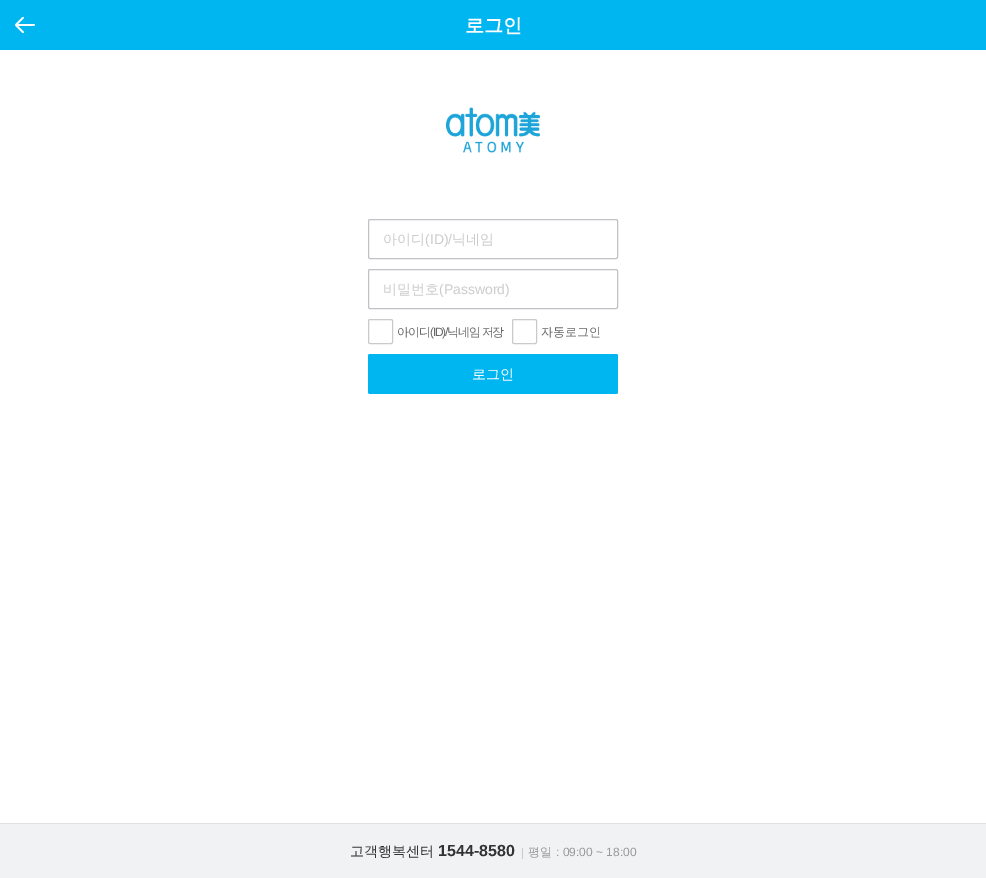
%!PS-Adobe-3.0
%%BoundingBox: 0 0 986 878
%%LanguageLevel: 3
%%Pages: 1
%%EndComments
%%BeginProlog
/setink { 3 { 255 div 3 1 roll } repeat setrgbcolor } def
/usefont { [ exch dup neg 0 0 3 -1 roll 0 0 ] selectfont } def
/drawtext { setink usefont moveto show } def
/fillbox { setink rectfill } def
/rrect { 5 dict begin { /r /h /w /y /x } { exch def } forall
  x r add y moveto x w add y 2 copy h add r arct x w add y h add x 1 index r arct
  x y h add x y r arct x y 2 copy exch w add exch r arct closepath end } def
/drawimage { 5 dict begin { /h /w /y /x /name } { exch def } forall
  gsave x y translate w h scale
  w h 8 [w 0 0 h 0 0] name (r) file false 3 colorimage grestore end } def
%%EndProlog
%%BeginSetup
<< /PageSize [986 878] >> setpagedevice
%%EndSetup
%%Page: 1 1
0 878 translate 1 -1 scale
4 setmiterlimit
0 0 986 878 255 255 255 fillbox
0 0 986 50 0 182 240 fillbox
(assets/img1.rgb) 15 17 20 16 drawimage
(로그인) 465 32 /WenQuanYiZenHei-Bold 19 255 255 255 drawtext
(assets/img2.rgb) 446 107 94 46 drawimage
191 194 198 setink
368.5 219.5 249 39 1.5 rrect stroke
(아이디) 383 244 /WenQuanYiZenHei-Medium 14 204 204 204 drawtext
(\(ID\)/) 425 244 /LiberationSans-Regular 14 204 204 204 drawtext
(닉네임) 452 244 /WenQuanYiZenHei-Medium 14 204 204 204 drawtext
191 194 198 setink
368.5 269.5 249 39 1.5 rrect stroke
(비밀번호) 383 294 /WenQuanYiZenHei-Medium 14 204 204 204 drawtext
(\(Password\)) 439 294 /LiberationSans-Regular 14 204 204 204 drawtext
202 202 202 setink
368.5 319.5 24 24 1.5 rrect stroke
/WenQuanYiZenHei-Medium 12 usefont
102 102 102 setink
397 336 moveto -1.25 0 (아이디) ashow
/LiberationSans-Regular 12 usefont
430 336 moveto -1.25 0 (\(ID\)/) ashow
/WenQuanYiZenHei-Medium 12 usefont
447 336 moveto -1.25 0 (닉네임 저장) ashow
202 202 202 setink
512.5 319.5 24 24 1.5 rrect stroke
(자동로그인) 541 336 /WenQuanYiZenHei-Medium 12 102 102 102 drawtext
0 182 240 setink
368 354 250 40 2 rrect fill
(로그인) 472 379 /WenQuanYiZenHei-Medium 14 255 255 255 drawtext
0 824 986 54 241 242 244 fillbox
0 823 986 1 226 226 226 fillbox
(고객행복센터) 350 856 /WenQuanYiZenHei-Medium 14 51 51 51 drawtext
(1544-8580) 438 856 /LiberationSans-Bold 16 51 51 51 drawtext
522 848 1 11 201 201 201 fillbox
(평일) 528 856 /WenQuanYiZenHei-Medium 12 153 153 153 drawtext
(: 09:00 ~ 18:00) 556 856 /LiberationSans-Regular 12 153 153 153 drawtext
showpage
%%EOF
